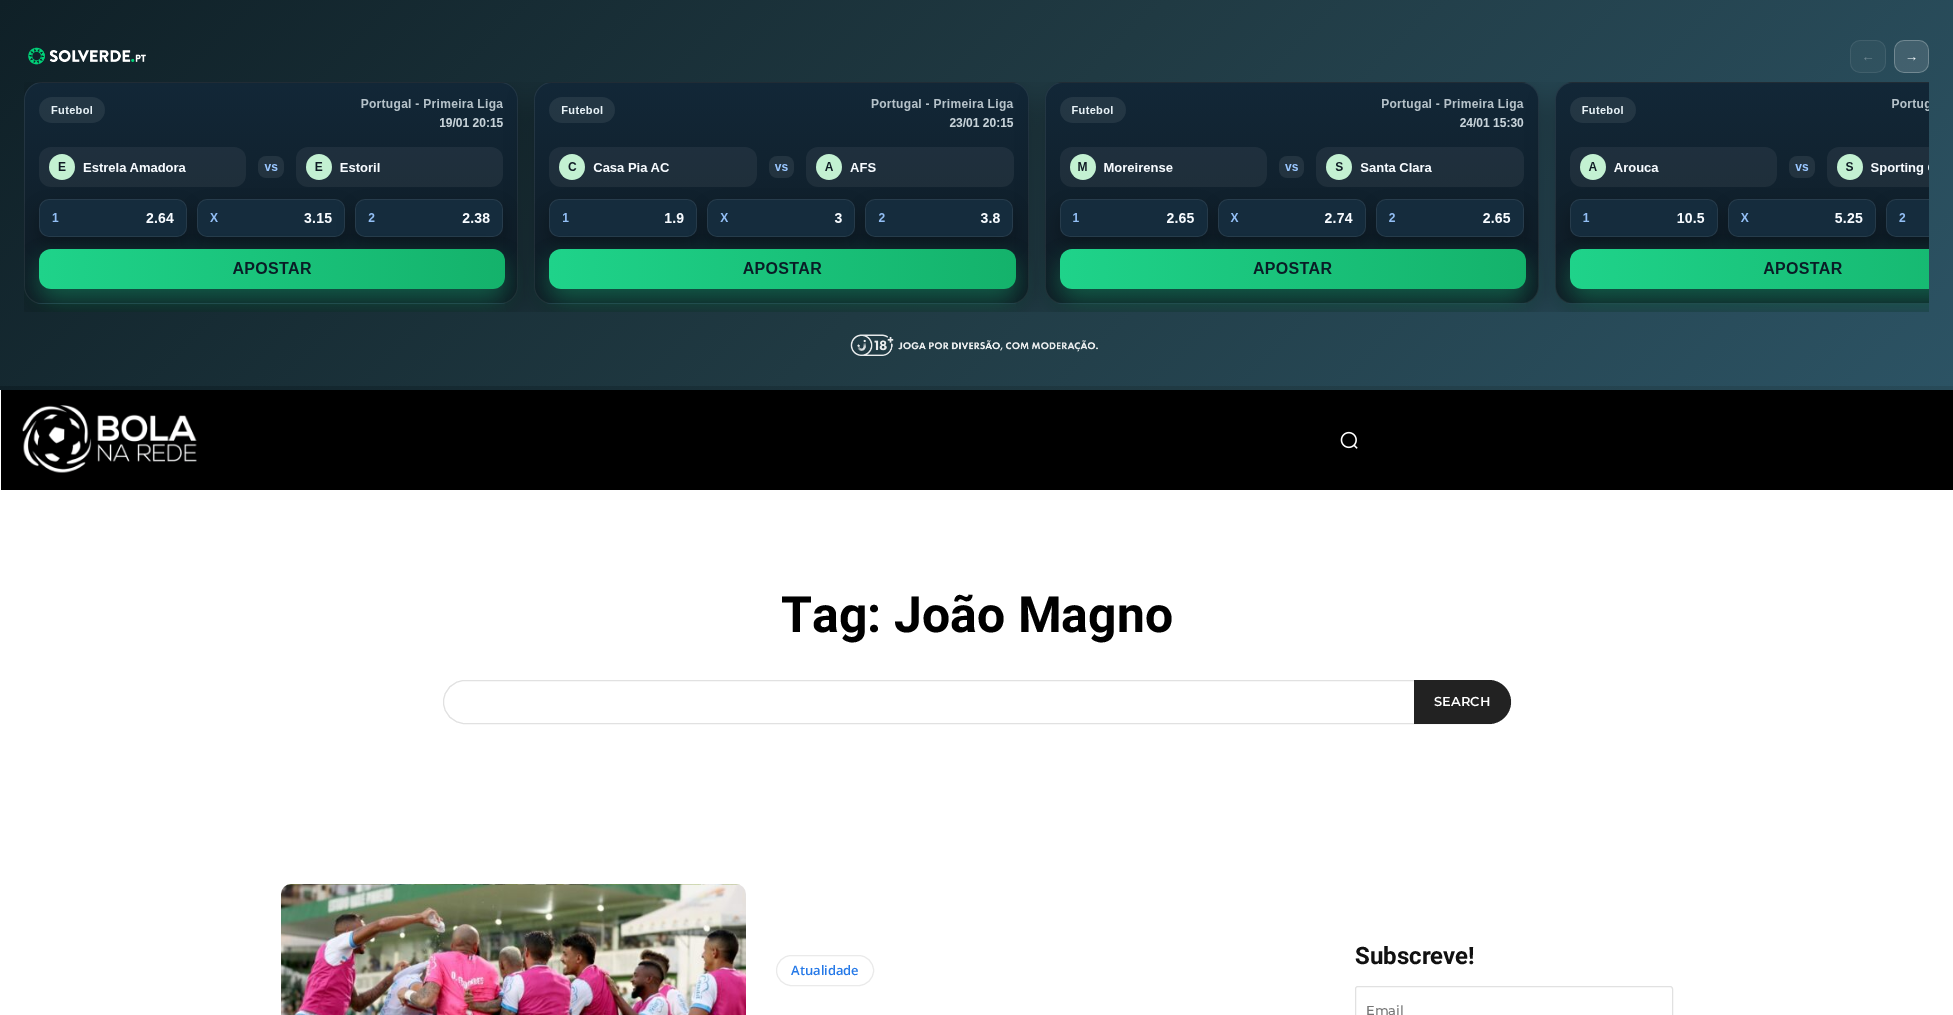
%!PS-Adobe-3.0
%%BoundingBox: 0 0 1953 1015
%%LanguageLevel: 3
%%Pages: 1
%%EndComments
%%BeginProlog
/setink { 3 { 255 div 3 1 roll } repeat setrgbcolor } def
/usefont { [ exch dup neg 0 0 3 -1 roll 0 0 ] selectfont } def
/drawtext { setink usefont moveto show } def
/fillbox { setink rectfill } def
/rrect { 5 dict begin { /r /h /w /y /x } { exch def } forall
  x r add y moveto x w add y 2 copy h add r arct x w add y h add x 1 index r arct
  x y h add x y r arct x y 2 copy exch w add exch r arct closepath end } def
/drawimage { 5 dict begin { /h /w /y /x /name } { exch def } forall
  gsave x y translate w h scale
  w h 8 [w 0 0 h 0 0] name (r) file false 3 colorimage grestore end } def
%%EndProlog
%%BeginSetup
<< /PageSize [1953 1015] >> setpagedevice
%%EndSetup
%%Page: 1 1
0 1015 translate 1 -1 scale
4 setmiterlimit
0 0 1953 1015 255 255 255 fillbox
(assets/img1.rgb) 0 0 1953 390 drawimage
1 390 1952 100 0 0 0 fillbox
(assets/img2.rgb) 22 405 175 68 drawimage
(assets/img3.rgb) 1340 431 18 18 drawimage
(Tag: João Magno) 781 632 /Roboto-Bold 50 0 0 0 drawtext
225 225 225 setink
443.5 680.5 1067 43 21.5 rrect stroke
34 34 34 setink
1414 680 moveto 1489 680 lineto 1501 680 1511 690 1511 702 curveto 1511 714 1501 724 1489 724 curveto 1414 724 lineto closepath fill
(SEARCH) 1434 706 /Montserrat-SemiBold 13 255 255 255 drawtext
(assets/img4.rgb) 281 884 465 131 drawimage
234 234 234 setink
776.5 955.5 97 30 15 rrect stroke
(Atualidade) 791 975 /OpenSans-SemiBold 13 37 121 232 drawtext
(Subscreve!) 1355 964 /Roboto-Bold 24 17 17 17 drawtext
225 225 225 setink
1355.5 986.5 317 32 2.5 rrect stroke
(Email) 1366 1015 /Montserrat-Medium 13 117 117 117 drawtext
showpage
%%EOF
